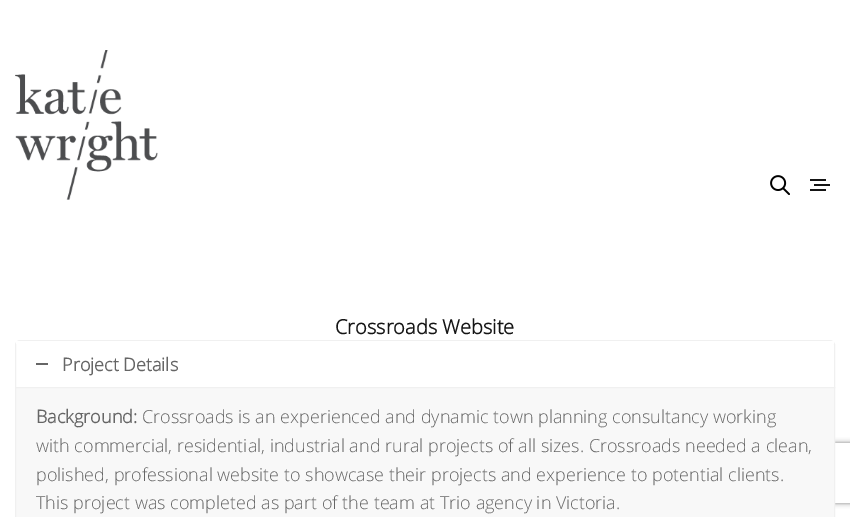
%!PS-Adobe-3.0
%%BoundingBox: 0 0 850 517
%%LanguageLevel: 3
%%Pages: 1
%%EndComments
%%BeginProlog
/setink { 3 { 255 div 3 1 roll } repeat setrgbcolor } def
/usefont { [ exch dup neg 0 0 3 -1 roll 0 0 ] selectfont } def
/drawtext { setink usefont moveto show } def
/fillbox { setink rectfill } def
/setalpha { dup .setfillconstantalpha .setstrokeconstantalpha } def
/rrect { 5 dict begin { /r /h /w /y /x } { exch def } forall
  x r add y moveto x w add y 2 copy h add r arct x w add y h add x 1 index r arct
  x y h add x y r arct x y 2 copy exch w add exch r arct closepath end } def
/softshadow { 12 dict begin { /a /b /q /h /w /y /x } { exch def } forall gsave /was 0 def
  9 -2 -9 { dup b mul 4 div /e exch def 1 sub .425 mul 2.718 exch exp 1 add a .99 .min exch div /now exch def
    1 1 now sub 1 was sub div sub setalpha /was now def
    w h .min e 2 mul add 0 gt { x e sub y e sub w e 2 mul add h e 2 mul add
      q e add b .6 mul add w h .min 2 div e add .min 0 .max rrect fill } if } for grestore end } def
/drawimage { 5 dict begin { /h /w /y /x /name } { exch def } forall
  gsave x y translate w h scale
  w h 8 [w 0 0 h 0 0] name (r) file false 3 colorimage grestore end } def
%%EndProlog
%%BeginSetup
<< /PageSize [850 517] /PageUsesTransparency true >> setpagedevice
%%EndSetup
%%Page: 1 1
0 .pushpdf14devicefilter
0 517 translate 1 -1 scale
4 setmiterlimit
0 0 850 517 255 255 255 fillbox
(assets/img1.rgb) 15 50 143 150 drawimage
(assets/img2.rgb) 770 175 20 20 drawimage
810 179 16 2 21 21 21 fillbox
814 184 16 2 21 21 21 fillbox
810 189 16 2 21 21 21 fillbox
(Crossroads Website) 335 334 /OpenSans-Bold 20 21 21 21 drawtext
240 240 240 setink
20 340.5 moveto 830 340.5 lineto 832.5 340.5 834.5 342.5 834.5 345 curveto 834.5 387.5 lineto 15.5 387.5 lineto 15.5 345 lineto 15.5 342.5 17.5 340.5 20 340.5 curveto closepath stroke
16 341 818 3 255 255 255 fillbox
36 363 12 2 102 102 102 fillbox
(Project Details) 62 371 /OpenSans-Bold 18 102 102 102 drawtext
gsave
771 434 moveto 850 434 lineto 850 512 lineto 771 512 lineto closepath 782 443 moveto 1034 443 lineto 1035 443 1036 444 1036 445 curveto 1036 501 lineto 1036 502 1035 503 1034 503 curveto 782 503 lineto 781 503 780 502 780 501 curveto 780 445 lineto 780 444 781 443 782 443 curveto closepath eoclip newpath
128 128 128 setink
780 443 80 60 2 2.5 1 softshadow
grestore
248 248 248 setink
15.5 387.5 moveto 834.5 387.5 lineto 834.5 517.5 lineto 15.5 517.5 lineto closepath gsave fill grestore
240 240 240 setink
stroke
(Background:) 36 423 /OpenSans-Bold 18 102 102 102 drawtext
(Crossroads is an experienced and dynamic town planning consultancy working) 142 423 /OpenSans-Light 18 102 102 102 drawtext
(with commercial, residential, industrial and rural projects of all sizes. Crossroads needed a clean,) 36 452 /OpenSans-Light 18 102 102 102 drawtext
(polished, professional website to showcase their projects and experience to potential clients.) 36 481 /OpenSans-Light 18 102 102 102 drawtext
(This project was completed as part of the team at Trio agency in Victoria.) 36 509 /OpenSans-Light 18 102 102 102 drawtext
.poppdf14devicefilter showpage
%%EOF
